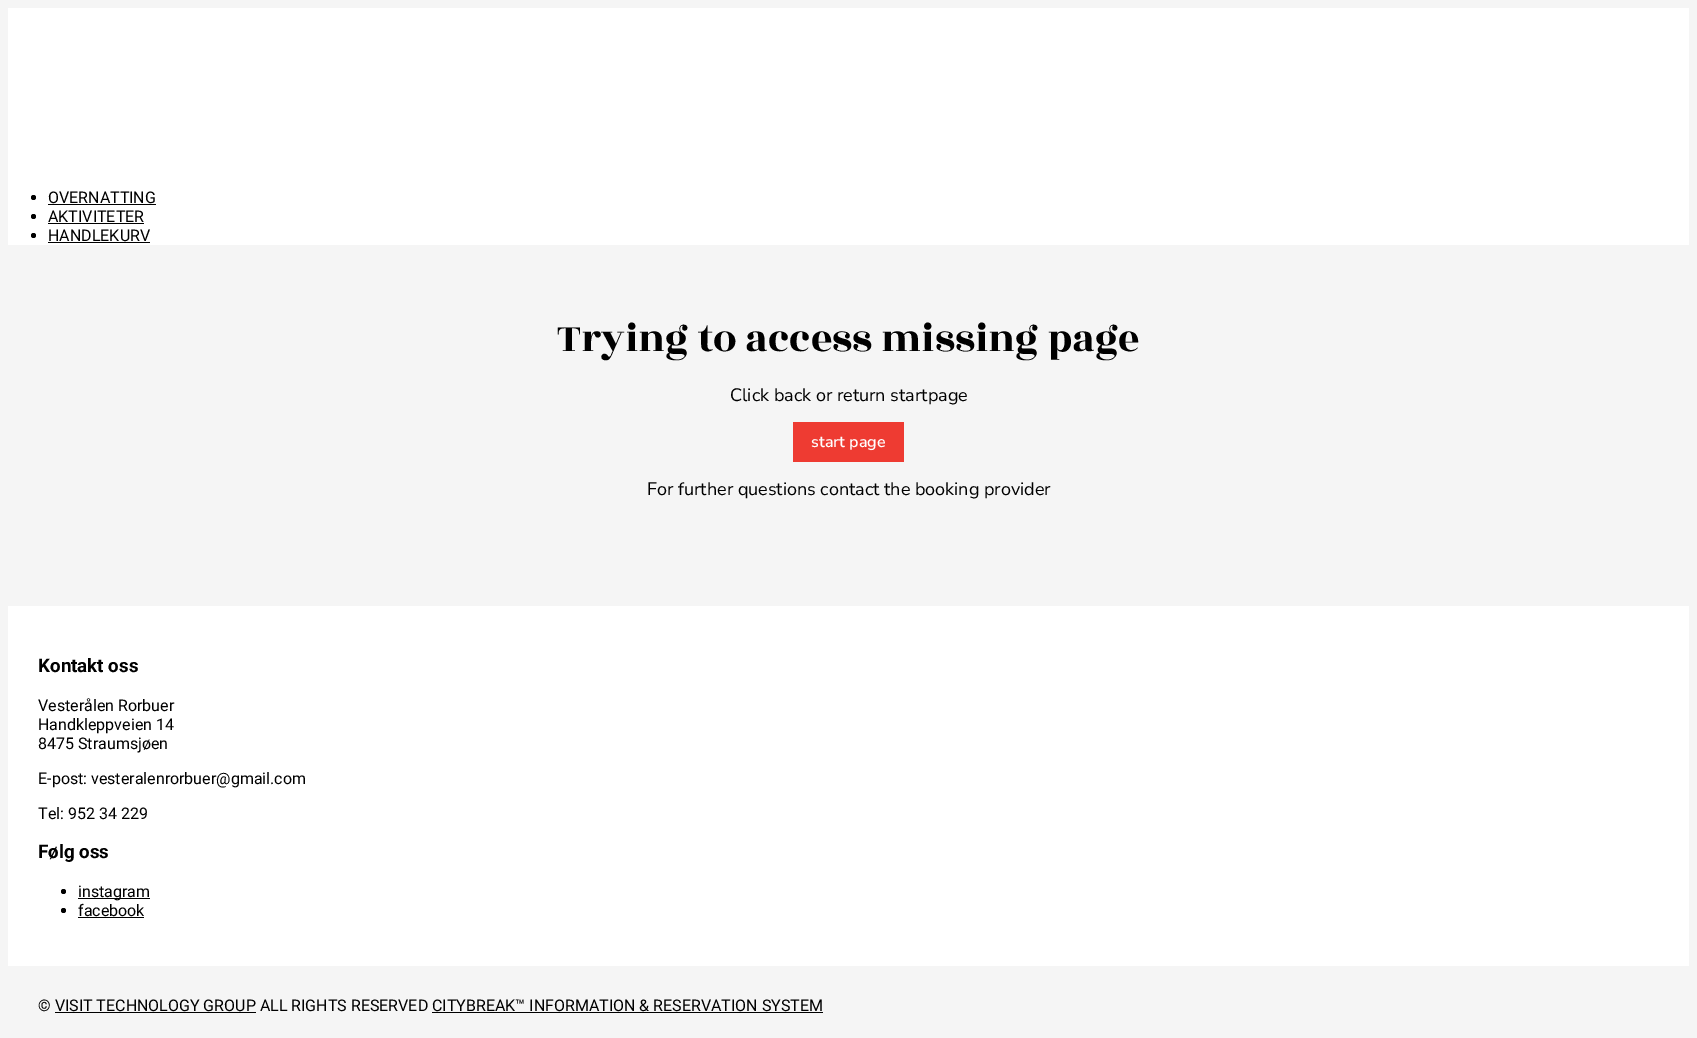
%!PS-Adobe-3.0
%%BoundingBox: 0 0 1697 1038
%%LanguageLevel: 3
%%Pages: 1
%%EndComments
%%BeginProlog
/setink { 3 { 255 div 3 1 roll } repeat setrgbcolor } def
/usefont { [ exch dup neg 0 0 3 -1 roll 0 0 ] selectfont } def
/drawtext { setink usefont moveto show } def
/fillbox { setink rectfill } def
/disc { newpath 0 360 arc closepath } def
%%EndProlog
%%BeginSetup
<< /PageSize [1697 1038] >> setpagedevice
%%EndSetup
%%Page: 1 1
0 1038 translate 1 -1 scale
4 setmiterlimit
0 0 1697 1038 245 245 245 fillbox
8 8 1681 237 255 255 255 fillbox
0 0 0 setink
33.5 197.5 2.5 disc fill
(OVERNATTING) 48 203 /Roboto-Regular 16 0 0 0 drawtext
48 204 108 1 0 0 0 fillbox
33.5 216.5 2.5 disc fill
(AKTIVITETER) 48 222 /Roboto-Regular 16 0 0 0 drawtext
48 223 96 1 0 0 0 fillbox
33.5 235.5 2.5 disc fill
(HANDLEKURV) 48 241 /Roboto-Regular 16 0 0 0 drawtext
48 242 102 1 0 0 0 fillbox
(Trying to access missing page) 557 351 /RozhaOne-Regular 42 0 0 0 drawtext
(Click back or return startpage) 730 401 /NunitoSans-Regular 18 0 0 0 drawtext
793 422 111 40 238 59 50 fillbox
(start page) 811 447 /NunitoSans-SemiBold 16 255 255 255 drawtext
(For further questions contact the booking provider) 647 495 /NunitoSans-Regular 18 0 0 0 drawtext
8 606 1681 360 255 255 255 fillbox
(Kontakt oss) 38 672 /Roboto-Bold 18.75 0 0 0 drawtext
(Vesterålen Rorbuer) 38 711 /Roboto-Regular 16 0 0 0 drawtext
(Handkleppveien 14) 38 730 /Roboto-Regular 16 0 0 0 drawtext
(8475 Straumsjøen) 38 749 /Roboto-Regular 16 0 0 0 drawtext
(E-post: vesteralenrorbuer@gmail.com) 38 784 /Roboto-Regular 16 0 0 0 drawtext
(Tel: 952 34 229) 38 819 /Roboto-Regular 16 0 0 0 drawtext
(Følg oss) 38 858 /Roboto-Bold 18.75 0 0 0 drawtext
63.5 891.5 2.5 disc fill
78 898 72 1 0 0 0 fillbox
(instagram) 78 897 /Roboto-Regular 16 0 0 0 drawtext
63.5 910.5 2.5 disc fill
(facebook) 78 916 /Roboto-Regular 16 0 0 0 drawtext
78 917 66 1 0 0 0 fillbox
(© VISIT TECHNOLOGY GROUP ALL RIGHTS RESERVED CITYBREAK™ INFORMATION & RESERVATION SYSTEM) 38 1011 /Roboto-Regular 16 0 0 0 drawtext
55 1012 201 1 0 0 0 fillbox
432 1012 391 1 0 0 0 fillbox
showpage
%%EOF
